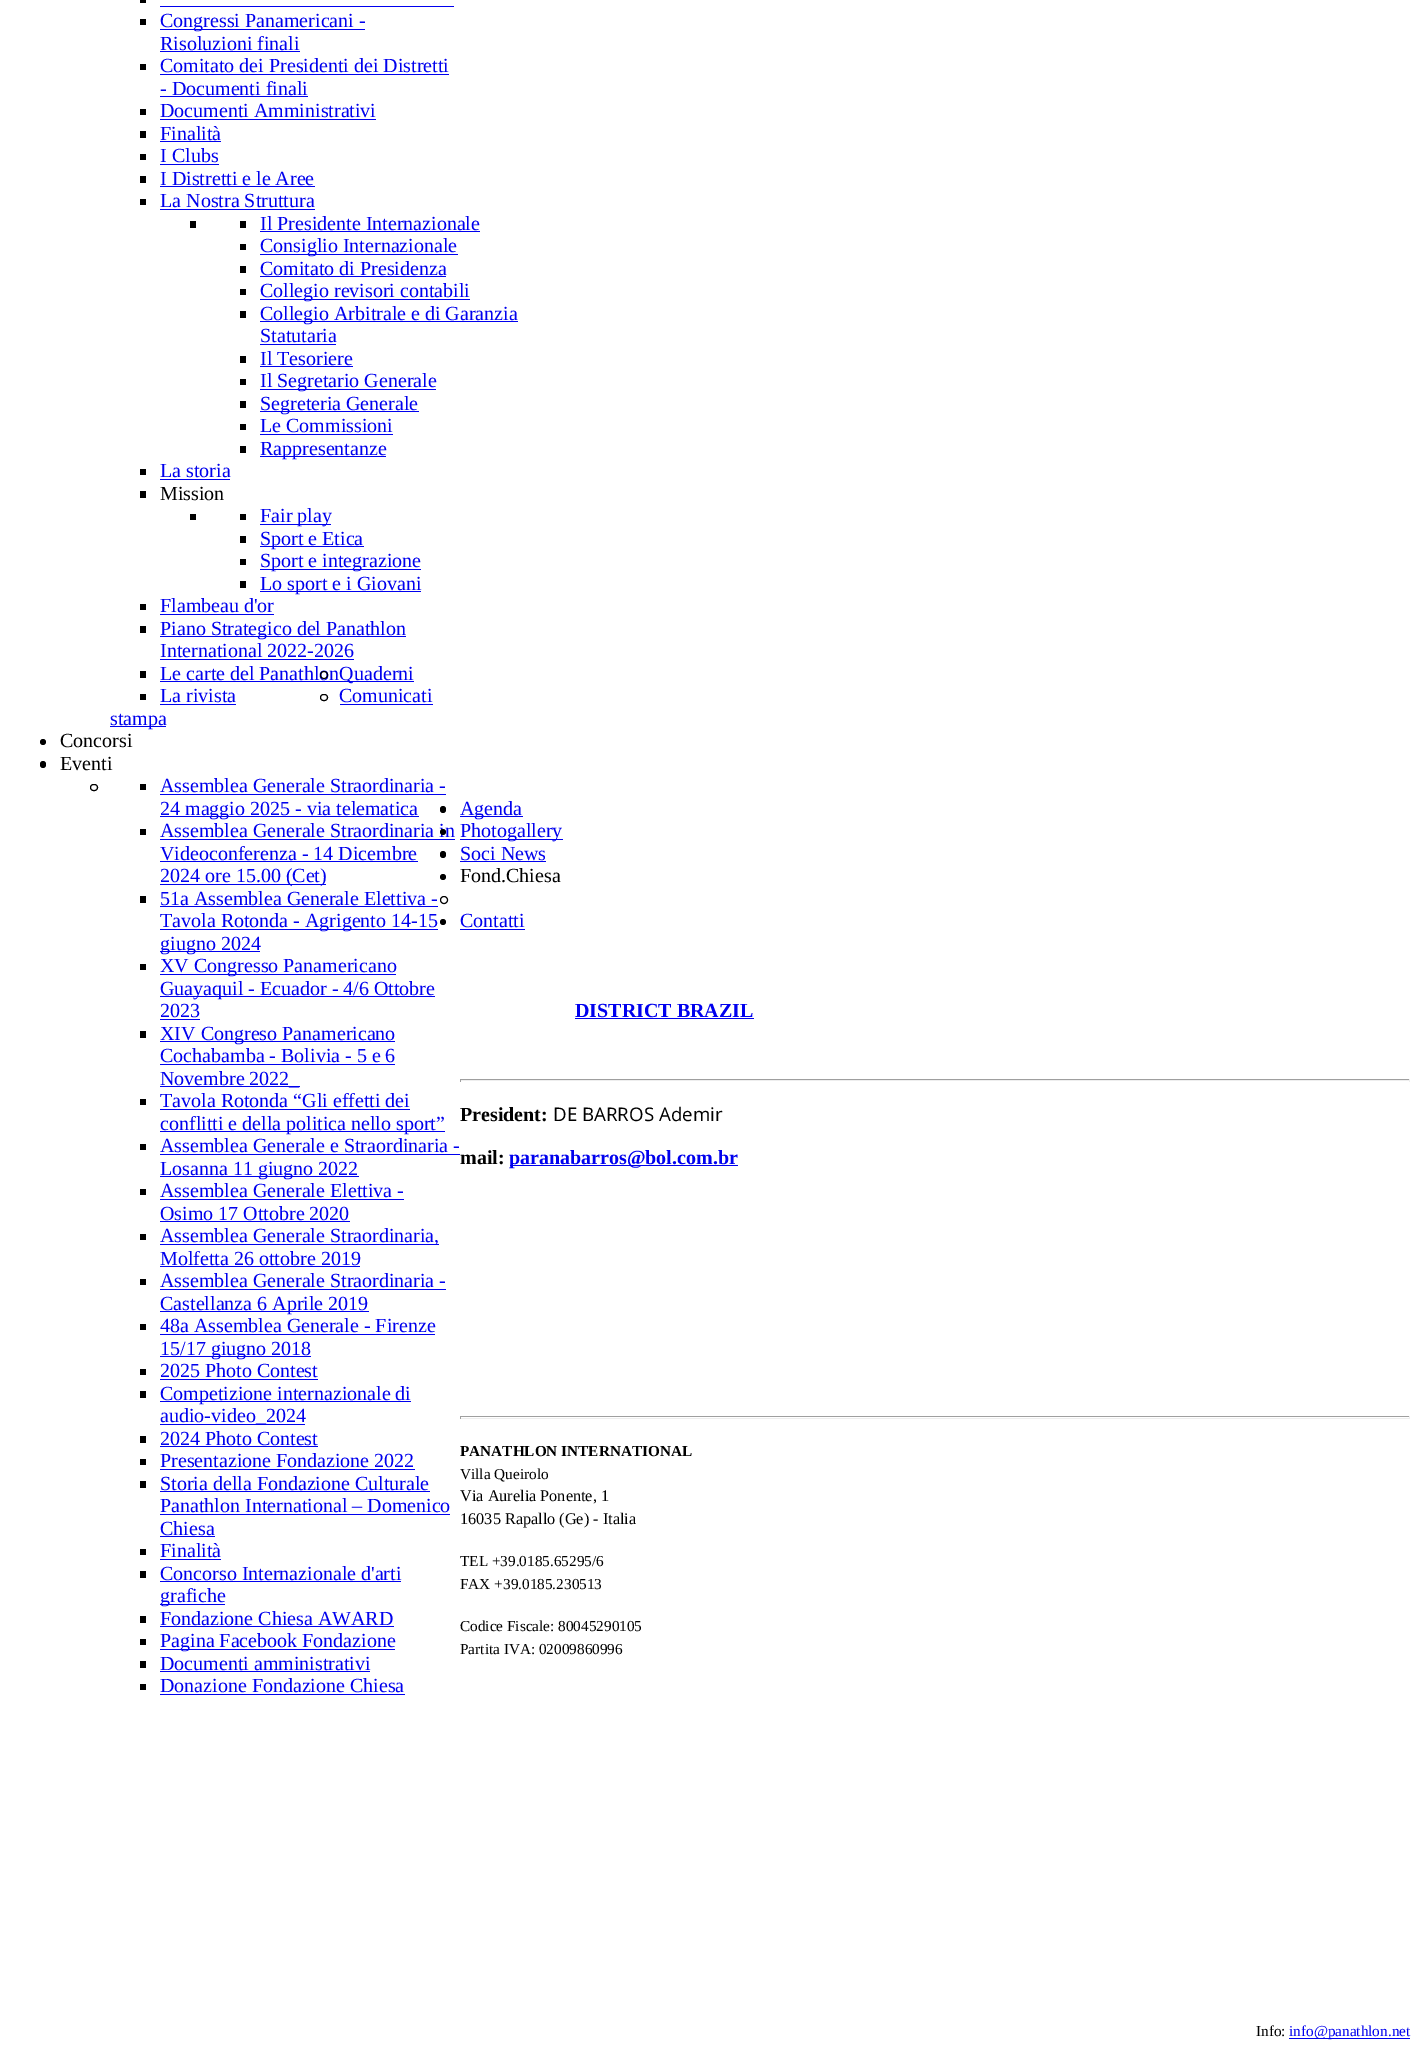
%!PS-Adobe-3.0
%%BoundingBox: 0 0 1420 2050
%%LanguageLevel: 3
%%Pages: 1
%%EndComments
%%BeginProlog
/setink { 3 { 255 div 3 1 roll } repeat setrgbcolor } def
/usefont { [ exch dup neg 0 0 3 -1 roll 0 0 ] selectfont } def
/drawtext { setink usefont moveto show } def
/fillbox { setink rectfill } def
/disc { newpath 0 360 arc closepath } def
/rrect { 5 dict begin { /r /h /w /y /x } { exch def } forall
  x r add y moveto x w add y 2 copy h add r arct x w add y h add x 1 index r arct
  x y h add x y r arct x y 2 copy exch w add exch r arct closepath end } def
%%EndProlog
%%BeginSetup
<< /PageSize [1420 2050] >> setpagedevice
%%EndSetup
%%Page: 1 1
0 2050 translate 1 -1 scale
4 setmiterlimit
0 0 1420 2050 255 255 255 fillbox
140 0 6 3 0 0 0 fillbox
160 6 294 1 0 0 238 fillbox
140 19 6 6 0 0 0 fillbox
160 29 205 1 0 0 238 fillbox
(Congressi Panamericani -) 160 27 /LiberationSerif-Regular 20 0 0 238 drawtext
(Risoluzioni finali) 160 50 /LiberationSerif-Regular 20 0 0 238 drawtext
160 51 140 1 0 0 238 fillbox
140 64 6 6 0 0 0 fillbox
(Comitato dei Presidenti dei Distretti) 160 72 /LiberationSerif-Regular 20 0 0 238 drawtext
160 74 289 1 0 0 238 fillbox
(- Documenti finali) 160 95 /LiberationSerif-Regular 20 0 0 238 drawtext
160 96 148 1 0 0 238 fillbox
140 109 6 6 0 0 0 fillbox
(Documenti Amministrativi) 160 117 /LiberationSerif-Regular 20 0 0 238 drawtext
160 119 216 1 0 0 238 fillbox
140 131 6 7 0 0 0 fillbox
(Finalità) 160 140 /LiberationSerif-Regular 20 0 0 238 drawtext
160 141 61 1 0 0 238 fillbox
140 154 6 6 0 0 0 fillbox
(I Clubs) 160 162 /LiberationSerif-Regular 20 0 0 238 drawtext
160 164 59 1 0 0 238 fillbox
140 176 6 7 0 0 0 fillbox
(I Distretti e le Aree) 160 185 /LiberationSerif-Regular 20 0 0 238 drawtext
160 186 155 1 0 0 238 fillbox
140 199 6 6 0 0 0 fillbox
(La Nostra Struttura) 160 207 /LiberationSerif-Regular 20 0 0 238 drawtext
160 209 155 1 0 0 238 fillbox
190 221 6 7 0 0 0 fillbox
240 221 6 7 0 0 0 fillbox
(Il Presidente Internazionale) 260 230 /LiberationSerif-Regular 20 0 0 238 drawtext
260 231 220 1 0 0 238 fillbox
240 244 6 6 0 0 0 fillbox
260 254 198 1 0 0 238 fillbox
(Consiglio Internazionale) 260 252 /LiberationSerif-Regular 20 0 0 238 drawtext
240 266 6 7 0 0 0 fillbox
(Comitato di Presidenza) 260 275 /LiberationSerif-Regular 20 0 0 238 drawtext
260 276 186 1 0 0 238 fillbox
240 289 6 6 0 0 0 fillbox
260 299 210 1 0 0 238 fillbox
(Collegio revisori contabili) 260 297 /LiberationSerif-Regular 20 0 0 238 drawtext
240 311 6 7 0 0 0 fillbox
260 321 258 1 0 0 238 fillbox
(Collegio Arbitrale e di Garanzia) 260 320 /LiberationSerif-Regular 20 0 0 238 drawtext
(Statutaria) 260 342 /LiberationSerif-Regular 20 0 0 238 drawtext
260 344 76 1 0 0 238 fillbox
240 356 6 7 0 0 0 fillbox
(Il Tesoriere) 260 365 /LiberationSerif-Regular 20 0 0 238 drawtext
260 366 93 1 0 0 238 fillbox
240 379 6 6 0 0 0 fillbox
260 389 176 1 0 0 238 fillbox
(Il Segretario Generale) 260 387 /LiberationSerif-Regular 20 0 0 238 drawtext
240 401 6 7 0 0 0 fillbox
260 411 159 1 0 0 238 fillbox
(Segreteria Generale) 260 410 /LiberationSerif-Regular 20 0 0 238 drawtext
240 424 6 6 0 0 0 fillbox
(Le Commissioni) 260 432 /LiberationSerif-Regular 20 0 0 238 drawtext
260 434 133 1 0 0 238 fillbox
240 446 6 7 0 0 0 fillbox
260 456 126 1 0 0 238 fillbox
(Rappresentanze) 260 455 /LiberationSerif-Regular 20 0 0 238 drawtext
140 469 6 6 0 0 0 fillbox
(La storia) 160 477 /LiberationSerif-Regular 20 0 0 238 drawtext
160 479 70 1 0 0 238 fillbox
140 491 6 7 0 0 0 fillbox
(Mission) 160 500 /LiberationSerif-Regular 20 0 0 0 drawtext
190 514 6 6 0 0 0 fillbox
240 514 6 6 0 0 0 fillbox
260 524 71 1 0 0 238 fillbox
(Fair play) 260 522 /LiberationSerif-Regular 20 0 0 238 drawtext
240 536 6 7 0 0 0 fillbox
260 546 104 1 0 0 238 fillbox
(Sport e Etica) 260 545 /LiberationSerif-Regular 20 0 0 238 drawtext
240 559 6 6 0 0 0 fillbox
260 569 161 1 0 0 238 fillbox
(Sport e integrazione) 260 567 /LiberationSerif-Regular 20 0 0 238 drawtext
240 581 6 7 0 0 0 fillbox
260 591 161 1 0 0 238 fillbox
(Lo sport e i Giovani) 260 590 /LiberationSerif-Regular 20 0 0 238 drawtext
140 604 6 6 0 0 0 fillbox
(Flambeau d'or) 160 612 /LiberationSerif-Regular 20 0 0 238 drawtext
160 614 114 1 0 0 238 fillbox
140 626 6 7 0 0 0 fillbox
160 636 246 1 0 0 238 fillbox
(Piano Strategico del Panathlon) 160 635 /LiberationSerif-Regular 20 0 0 238 drawtext
(International 2022-2026) 160 657 /LiberationSerif-Regular 20 0 0 238 drawtext
160 659 194 1 0 0 238 fillbox
140 671 6 7 0 0 0 fillbox
160 681 254 1 0 0 238 fillbox
(Le carte del PanathlonQuaderni) 160 680 /LiberationSerif-Regular 20 0 0 238 drawtext
140 694 6 6 0 0 0 fillbox
(La rivista) 160 702 /LiberationSerif-Regular 20 0 0 238 drawtext
160 704 76 1 0 0 238 fillbox
0 0 0 setink
324 675 3.5 disc stroke
320.5 694.5 7 6 3 rrect stroke
(Comunicati) 339 702 /LiberationSerif-Regular 20 0 0 238 drawtext
340 704 93 1 0 0 238 fillbox
110 726 56 1 0 0 238 fillbox
(stampa) 110 725 /LiberationSerif-Regular 20 0 0 238 drawtext
0 0 0 setink
43 742 3 disc fill
(Concorsi) 60 747 /LiberationSerif-Regular 20 0 0 0 drawtext
40 761 6 7 3 rrect fill
(Eventi) 60 770 /LiberationSerif-Regular 20 0 0 0 drawtext
90.5 784.5 7 6 3 rrect stroke
140 784 6 6 0 0 0 fillbox
(Assemblea Generale Straordinaria -) 160 792 /LiberationSerif-Regular 20 0 0 238 drawtext
160 794 286 1 0 0 238 fillbox
160 816 259 1 0 0 238 fillbox
(24 maggio 2025 - via telematica) 160 815 /LiberationSerif-Regular 20 0 0 238 drawtext
140 829 6 6 0 0 0 fillbox
(Assemblea Generale Straordinaria in) 160 837 /LiberationSerif-Regular 20 0 0 238 drawtext
160 839 295 1 0 0 238 fillbox
(Videoconferenza - 14 Dicembre) 160 860 /LiberationSerif-Regular 20 0 0 238 drawtext
160 861 258 1 0 0 238 fillbox
160 884 166 1 0 0 238 fillbox
(2024 ore 15.00 \(Cet\)) 160 882 /LiberationSerif-Regular 20 0 0 238 drawtext
140 896 6 7 0 0 0 fillbox
(51a Assemblea Generale Elettiva -) 160 905 /LiberationSerif-Regular 20 0 0 238 drawtext
160 906 278 1 0 0 238 fillbox
160 929 278 1 0 0 238 fillbox
(Tavola Rotonda - Agrigento 14-15) 160 927 /LiberationSerif-Regular 20 0 0 238 drawtext
160 951 100 1 0 0 238 fillbox
(giugno 2024) 160 950 /LiberationSerif-Regular 20 0 0 238 drawtext
140 964 6 6 0 0 0 fillbox
160 974 236 1 0 0 238 fillbox
(XV Congresso Panamericano) 160 972 /LiberationSerif-Regular 20 0 0 238 drawtext
160 996 275 1 0 0 238 fillbox
(Guayaquil - Ecuador - 4/6 Ottobre) 160 995 /LiberationSerif-Regular 20 0 0 238 drawtext
(2023) 160 1017 /LiberationSerif-Regular 20 0 0 238 drawtext
160 1019 40 1 0 0 238 fillbox
140 1031 6 7 0 0 0 fillbox
160 1041 235 1 0 0 238 fillbox
(XIV Congreso Panamericano) 160 1040 /LiberationSerif-Regular 20 0 0 238 drawtext
(Cochabamba - Bolivia - 5 e 6) 160 1062 /LiberationSerif-Regular 20 0 0 238 drawtext
160 1064 235 1 0 0 238 fillbox
160 1086 140 1 0 0 238 fillbox
(Novembre 2022_) 160 1085 /LiberationSerif-Regular 20 0 0 238 drawtext
140 1099 6 6 0 0 0 fillbox
(Tavola Rotonda “Gli effetti dei) 160 1107 /LiberationSerif-Regular 20 0 0 238 drawtext
160 1109 250 1 0 0 238 fillbox
160 1131 285 1 0 0 238 fillbox
(conflitti e della politica nello sport”) 160 1130 /LiberationSerif-Regular 20 0 0 238 drawtext
140 1144 6 6 0 0 0 fillbox
(Assemblea Generale e Straordinaria -) 160 1152 /LiberationSerif-Regular 20 0 0 238 drawtext
160 1154 300 1 0 0 238 fillbox
160 1176 199 1 0 0 238 fillbox
(Losanna 11 giugno 2022) 160 1175 /LiberationSerif-Regular 20 0 0 238 drawtext
140 1189 6 6 0 0 0 fillbox
(Assemblea Generale Elettiva -) 160 1197 /LiberationSerif-Regular 20 0 0 238 drawtext
160 1199 244 1 0 0 238 fillbox
(Osimo 17 Ottobre 2020) 160 1220 /LiberationSerif-Regular 20 0 0 238 drawtext
160 1221 190 1 0 0 238 fillbox
140 1234 6 6 0 0 0 fillbox
160 1244 279 1 0 0 238 fillbox
(Assemblea Generale Straordinaria,) 160 1242 /LiberationSerif-Regular 20 0 0 238 drawtext
(Molfetta 26 ottobre 2019) 160 1265 /LiberationSerif-Regular 20 0 0 238 drawtext
160 1266 200 1 0 0 238 fillbox
140 1279 6 6 0 0 0 fillbox
(Assemblea Generale Straordinaria -) 160 1287 /LiberationSerif-Regular 20 0 0 238 drawtext
160 1289 286 1 0 0 238 fillbox
160 1311 209 1 0 0 238 fillbox
(Castellanza 6 Aprile 2019) 160 1310 /LiberationSerif-Regular 20 0 0 238 drawtext
140 1324 6 6 0 0 0 fillbox
(48a Assemblea Generale - Firenze) 160 1332 /LiberationSerif-Regular 20 0 0 238 drawtext
160 1334 275 1 0 0 238 fillbox
160 1356 151 1 0 0 238 fillbox
(15/17 giugno 2018) 160 1355 /LiberationSerif-Regular 20 0 0 238 drawtext
0 0 0 setink
440 806 6 7 3 rrect fill
460 816 63 1 0 0 238 fillbox
(Agenda) 460 815 /LiberationSerif-Regular 20 0 0 238 drawtext
0 0 0 setink
443 832 3 disc fill
460 839 103 1 0 0 238 fillbox
(Photogallery) 460 837 /LiberationSerif-Regular 20 0 0 238 drawtext
0 0 0 setink
440 851 6 7 3 rrect fill
(Soci News) 460 860 /LiberationSerif-Regular 20 0 0 238 drawtext
460 861 86 1 0 0 238 fillbox
0 0 0 setink
443 877 3 disc fill
(Fond.Chiesa) 460 882 /LiberationSerif-Regular 20 0 0 0 drawtext
444 900 3.5 disc stroke
140 1369 6 6 0 0 0 fillbox
(2025 Photo Contest) 160 1377 /LiberationSerif-Regular 20 0 0 238 drawtext
160 1379 158 1 0 0 238 fillbox
140 1391 6 7 0 0 0 fillbox
160 1401 251 1 0 0 238 fillbox
(Competizione internazionale di) 160 1400 /LiberationSerif-Regular 20 0 0 238 drawtext
160 1424 145 1 0 0 238 fillbox
(audio-video_2024) 160 1422 /LiberationSerif-Regular 20 0 0 238 drawtext
140 1436 6 7 0 0 0 fillbox
(2024 Photo Contest) 160 1445 /LiberationSerif-Regular 20 0 0 238 drawtext
160 1446 158 1 0 0 238 fillbox
140 1459 6 6 0 0 0 fillbox
(Presentazione Fondazione 2022) 160 1467 /LiberationSerif-Regular 20 0 0 238 drawtext
160 1469 255 1 0 0 238 fillbox
140 1481 6 7 0 0 0 fillbox
(Storia della Fondazione Culturale) 160 1490 /LiberationSerif-Regular 20 0 0 238 drawtext
160 1491 270 1 0 0 238 fillbox
(Panathlon International – Domenico) 160 1512 /LiberationSerif-Regular 20 0 0 238 drawtext
160 1514 290 1 0 0 238 fillbox
(Chiesa) 160 1535 /LiberationSerif-Regular 20 0 0 238 drawtext
160 1536 55 1 0 0 238 fillbox
140 1549 6 6 0 0 0 fillbox
(Finalità) 160 1557 /LiberationSerif-Regular 20 0 0 238 drawtext
160 1559 61 1 0 0 238 fillbox
140 1571 6 7 0 0 0 fillbox
(Concorso Internazionale d'arti) 160 1580 /LiberationSerif-Regular 20 0 0 238 drawtext
160 1581 241 1 0 0 238 fillbox
160 1604 65 1 0 0 238 fillbox
(grafiche) 160 1602 /LiberationSerif-Regular 20 0 0 238 drawtext
140 1616 6 7 0 0 0 fillbox
(Fondazione Chiesa AWARD) 160 1625 /LiberationSerif-Regular 20 0 0 238 drawtext
160 1626 234 1 0 0 238 fillbox
140 1639 6 6 0 0 0 fillbox
160 1649 235 1 0 0 238 fillbox
(Pagina Facebook Fondazione) 160 1647 /LiberationSerif-Regular 20 0 0 238 drawtext
140 1661 6 7 0 0 0 fillbox
(Documenti amministrativi) 160 1670 /LiberationSerif-Regular 20 0 0 238 drawtext
160 1671 210 1 0 0 238 fillbox
140 1684 6 6 0 0 0 fillbox
(Donazione Fondazione Chiesa) 160 1692 /LiberationSerif-Regular 20 0 0 238 drawtext
160 1694 245 1 0 0 238 fillbox
0 0 0 setink
443 922 3 disc fill
(Contatti) 460 927 /LiberationSerif-Regular 20 0 0 238 drawtext
460 929 65 1 0 0 238 fillbox
(DISTRICT BRAZIL) 575 1017 /LiberationSerif-Bold 20 0 0 238 drawtext
575 1018 179 1 0 0 238 fillbox
460 1079 950 1 159 159 159 fillbox
1409 1079 1 3 238 238 238 fillbox
460 1080 950 1 238 238 238 fillbox
460 1079 1 3 159 159 159 fillbox
(President:) 460 1121 /LiberationSerif-Bold 20 0 0 0 drawtext
(DE BARROS Ademir) 553 1121 /OpenSans-Regular 18.75 0 0 0 drawtext
(mail:) 460 1164 /LiberationSerif-Bold 20 0 0 0 drawtext
510 1165 228 1 0 0 238 fillbox
(paranabarros@bol.com.br) 509 1164 /LiberationSerif-Bold 20 0 0 238 drawtext
460 1416 950 1 159 159 159 fillbox
1409 1416 1 3 238 238 238 fillbox
460 1418 950 1 238 238 238 fillbox
460 1416 1 3 159 159 159 fillbox
(PANATHLON INTERNATIONAL) 460 1456 /LiberationSerif-Bold 15.25 0 0 0 drawtext
(Villa Queirolo) 460 1479 /LiberationSerif-Regular 15.25 0 0 0 drawtext
(Via Aurelia Ponente, 1) 460 1501 /LiberationSerif-Regular 16.25 0 0 0 drawtext
(16035 Rapallo \(Ge\) - Italia) 460 1524 /LiberationSerif-Regular 16.25 0 0 0 drawtext
(TEL +39.0185.65295/6) 460 1566 /LiberationSerif-Regular 15.25 0 0 0 drawtext
(FAX +39.0185.230513) 460 1589 /LiberationSerif-Regular 15.25 0 0 0 drawtext
(Codice Fiscale: 80045290105) 460 1631 /LiberationSerif-Regular 15.25 0 0 0 drawtext
(Partita IVA: 02009860996) 460 1654 /LiberationSerif-Regular 15.25 0 0 0 drawtext
(Info:) 1256 2036 /LiberationSerif-Regular 15.25 0 0 0 drawtext
1289 2038 121 1 0 0 238 fillbox
(info@panathlon.net) 1289 2036 /LiberationSerif-Regular 15.25 0 0 238 drawtext
showpage
%%EOF
